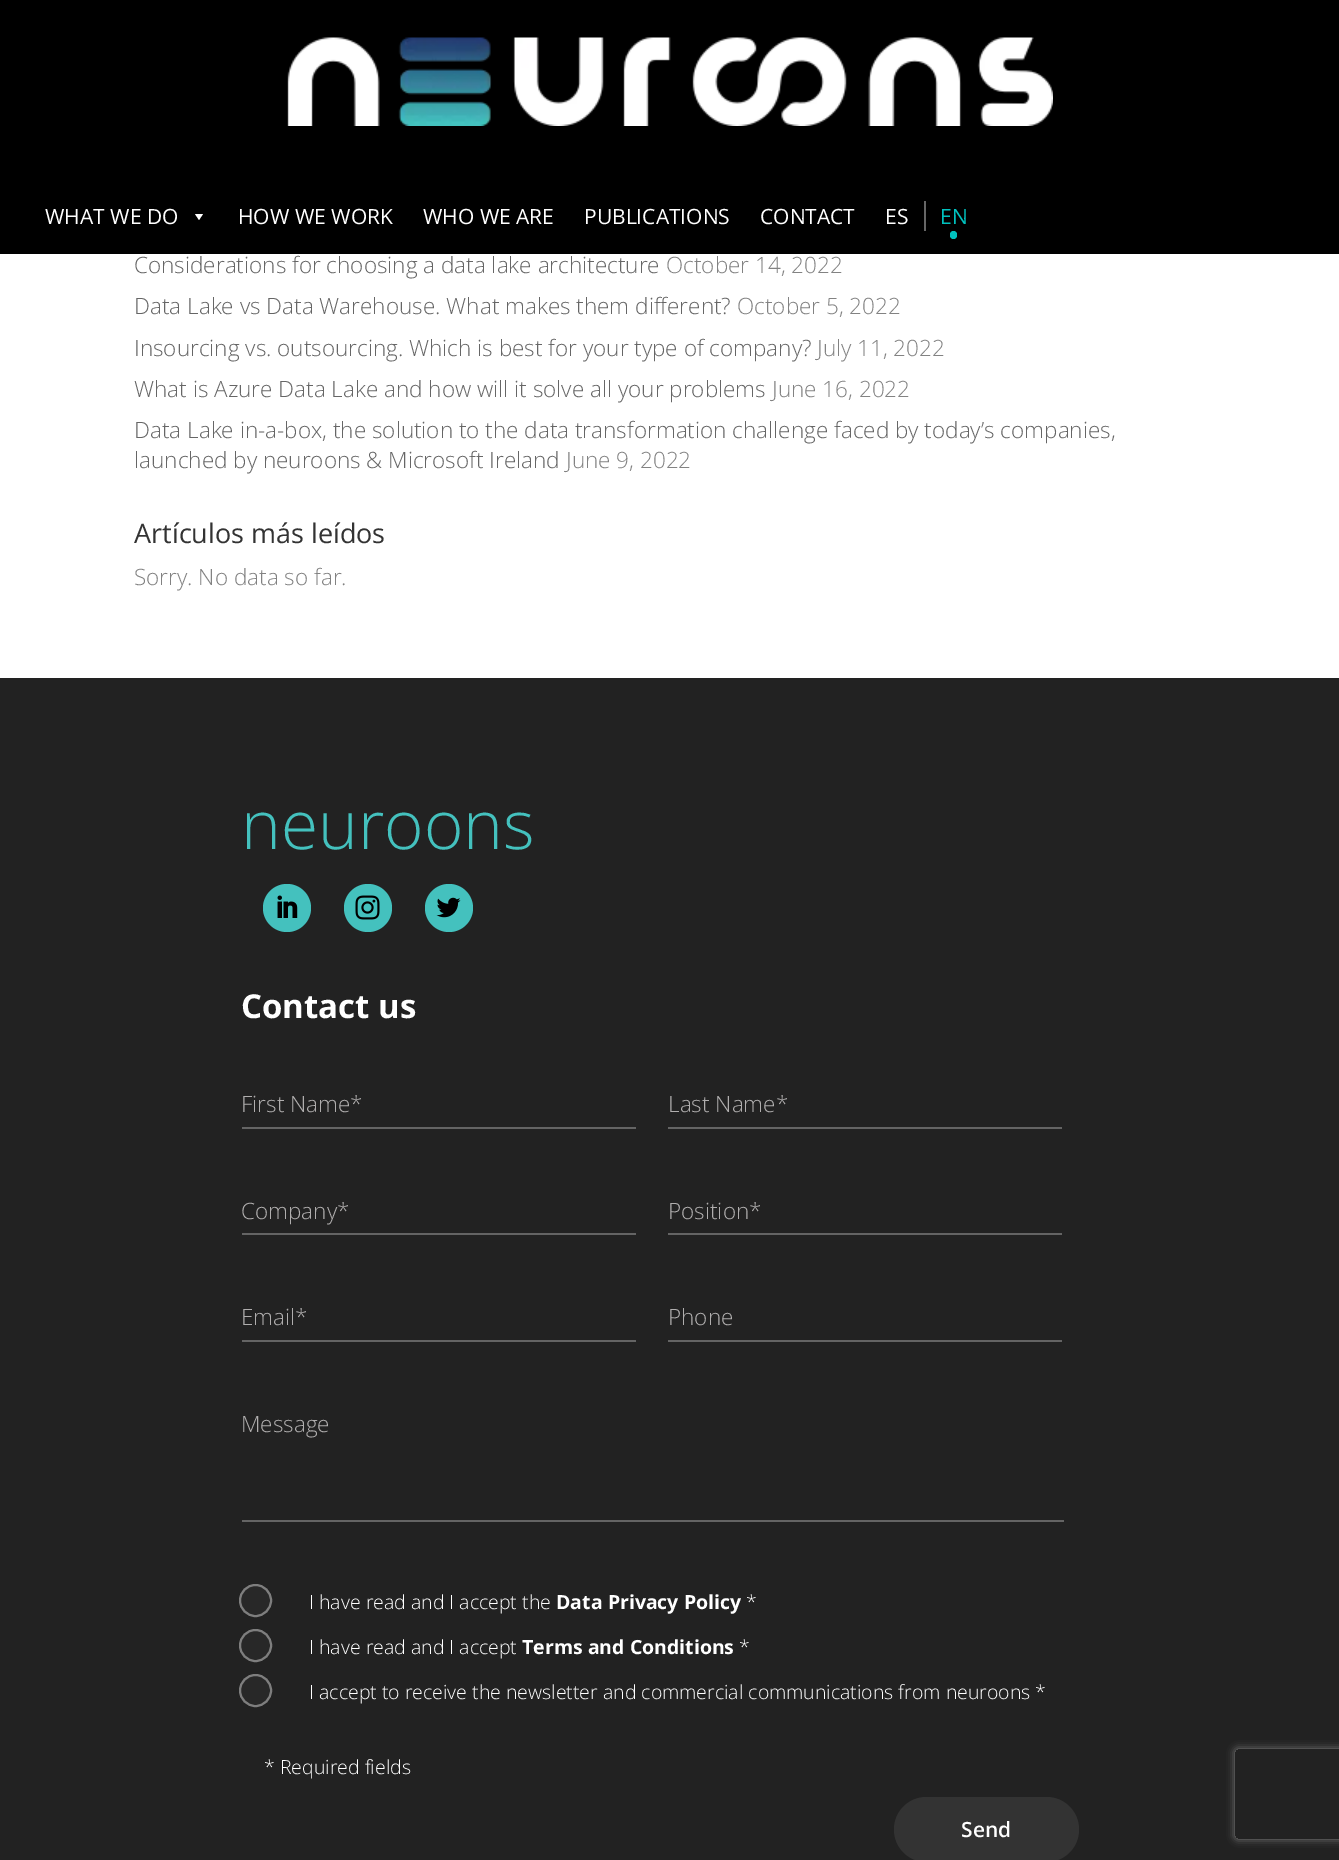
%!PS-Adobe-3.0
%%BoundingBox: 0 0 1339 1860
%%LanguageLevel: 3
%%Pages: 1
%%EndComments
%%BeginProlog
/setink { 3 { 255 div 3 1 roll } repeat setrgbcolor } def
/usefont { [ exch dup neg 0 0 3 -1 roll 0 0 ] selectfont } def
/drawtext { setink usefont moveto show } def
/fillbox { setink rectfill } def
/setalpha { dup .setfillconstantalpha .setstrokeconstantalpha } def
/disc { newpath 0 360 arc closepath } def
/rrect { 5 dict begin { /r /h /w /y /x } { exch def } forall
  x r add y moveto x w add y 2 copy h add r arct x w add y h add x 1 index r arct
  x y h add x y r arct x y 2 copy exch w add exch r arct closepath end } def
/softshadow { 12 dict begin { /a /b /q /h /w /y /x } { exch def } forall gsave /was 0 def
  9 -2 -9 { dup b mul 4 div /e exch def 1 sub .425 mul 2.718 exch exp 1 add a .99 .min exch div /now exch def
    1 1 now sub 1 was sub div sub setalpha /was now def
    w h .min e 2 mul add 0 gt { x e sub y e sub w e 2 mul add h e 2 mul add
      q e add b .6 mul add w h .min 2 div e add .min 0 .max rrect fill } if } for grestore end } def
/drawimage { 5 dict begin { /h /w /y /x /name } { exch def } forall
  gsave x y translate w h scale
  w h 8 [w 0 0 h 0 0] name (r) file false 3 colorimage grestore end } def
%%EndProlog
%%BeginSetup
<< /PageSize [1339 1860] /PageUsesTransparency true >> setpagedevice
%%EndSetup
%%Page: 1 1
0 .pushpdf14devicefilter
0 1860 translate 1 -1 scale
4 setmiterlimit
0 0 1339 1860 255 255 255 fillbox
0 0 1339 254 0 0 0 fillbox
(assets/img1.rgb) 287 37 766 89 drawimage
(WHAT WE DO) 45 224 /OpenSans-Regular 21 255 255 255 drawtext
203 214 moveto 199 220 lineto 195 214 lineto closepath fill
(HOW WE WORK) 238 224 /OpenSans-Regular 21 255 255 255 drawtext
(WHO WE ARE) 423 224 /OpenSans-Regular 21 255 255 255 drawtext
(PUBLICATIONS) 584 224 /OpenSans-Regular 21 255 255 255 drawtext
(CONTACT) 760 224 /OpenSans-Regular 21 255 255 255 drawtext
924 201 2 30 102 102 102 fillbox
(ES) 885 224 /OpenSans-Regular 21 255 255 255 drawtext
(EN) 940 224 /OpenSans-Regular 21 0 193 190 drawtext
950 231 7 8 3.5 rrect fill
(Considerations for choosing a data lake architecture) 134 273 /OpenSans-Light 22.5 102 102 102 drawtext
(October 14, 2022) 666 273 /OpenSans-Light 22.5 130 130 130 drawtext
(Data Lake vs Data Warehouse. What makes them different?) 134 314 /OpenSans-Light 22.5 102 102 102 drawtext
(October 5, 2022) 737 314 /OpenSans-Light 22.5 130 130 130 drawtext
(Insourcing vs. outsourcing. Which is best for your type of company?) 134 356 /OpenSans-Light 22.5 102 102 102 drawtext
(July 11, 2022) 817 356 /OpenSans-Light 22.5 130 130 130 drawtext
(What is Azure Data Lake and how will it solve all your problems) 134 397 /OpenSans-Light 22.5 102 102 102 drawtext
(June 16, 2022) 772 397 /OpenSans-Light 22.5 130 130 130 drawtext
(Data Lake in-a-box, the solution to the data transformation challenge faced by today’s companies,) 134 438 /OpenSans-Light 22.5 102 102 102 drawtext
(launched by neuroons & Microsoft Ireland) 134 468 /OpenSans-Light 22.5 102 102 102 drawtext
(June 9, 2022) 566 468 /OpenSans-Light 22.5 130 130 130 drawtext
(Artículos más leídos) 134 543 /OpenSans-Regular 27 51 51 51 drawtext
(Sorry. No data so far.) 134 585 /OpenSans-Light 22.5 130 130 130 drawtext
0 678 1339 1182 34 34 34 fillbox
(neuroons) 241 849 /OpenSans-Light 67.5 68 193 190 drawtext
287 908 24 disc fill
(assets/img2.rgb) 277 895 21 23 drawimage
368 908 24 disc fill
(assets/img3.rgb) 355 895 25 25 drawimage
449 908 24 disc fill
(assets/img4.rgb) 436 897 25 21 drawimage
(Contact us) 241 1018 /OpenSans-Bold 33 255 255 255 drawtext
242 1127 394 2 100 100 100 fillbox
(First Name*) 241 1112 /OpenSans-Light 22.5 176 174 174 drawtext
668 1127 394 2 100 100 100 fillbox
(Last Name*) 668 1112 /OpenSans-Light 22.5 176 174 174 drawtext
242 1233 394 2 100 100 100 fillbox
(Company*) 241 1219 /OpenSans-Light 22.5 176 174 174 drawtext
668 1233 394 2 100 100 100 fillbox
(Position*) 668 1219 /OpenSans-Light 22.5 176 174 174 drawtext
242 1340 394 2 100 100 100 fillbox
(Email*) 241 1325 /OpenSans-Light 22.5 176 174 174 drawtext
668 1340 394 2 100 100 100 fillbox
(Phone) 668 1325 /OpenSans-Light 22.5 176 174 174 drawtext
242 1520 822 2 100 100 100 fillbox
(Message) 241 1432 /OpenSans-Light 22.5 176 174 174 drawtext
40 40 40 setink
255.5 1600.5 16.5 disc fill
0.4 setalpha
255 255 255 setink
2 setlinewidth
255.5 1600.5 15.5 disc stroke
1 setalpha
(I have read and I accept the) 309 1609 /OpenSans-Light 19.5 255 255 255 drawtext
(Data Privacy Policy) 556 1609 /OpenSans-Bold 19.5 255 255 255 drawtext
(*) 746 1609 /OpenSans-Light 19.5 255 255 255 drawtext
40 40 40 setink
255.5 1645.5 16.5 disc fill
0.4 setalpha
255 255 255 setink
255.5 1645.5 15.5 disc stroke
1 setalpha
(I have read and I accept) 309 1654 /OpenSans-Light 19.5 255 255 255 drawtext
(Terms and Conditions) 522 1654 /OpenSans-Bold 19.5 255 255 255 drawtext
(*) 739 1654 /OpenSans-Light 19.5 255 255 255 drawtext
40 40 40 setink
255.5 1690.5 16.5 disc fill
0.4 setalpha
255 255 255 setink
255.5 1690.5 15.5 disc stroke
1 setalpha
(I accept to receive the newsletter and commercial communications from neuroons *) 309 1699 /OpenSans-Light 19.5 255 255 255 drawtext
(* Required fields) 264 1774 /OpenSans-Light 19.5 255 255 255 drawtext
51 51 51 setink
894 1797 185 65 32.5 rrect fill
(Send) 961 1837 /OpenSans-SemiBold 21 255 255 255 drawtext
gsave
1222 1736 moveto 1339 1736 lineto 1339 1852 lineto 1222 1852 lineto closepath 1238 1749 moveto 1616 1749 lineto 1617.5 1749 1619 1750.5 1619 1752 curveto 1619 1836 lineto 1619 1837.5 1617.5 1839 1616 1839 curveto 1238 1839 lineto 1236.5 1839 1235 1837.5 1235 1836 curveto 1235 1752 lineto 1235 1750.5 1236.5 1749 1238 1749 curveto closepath eoclip newpath
128 128 128 setink
1235 1749 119 90 3 4 1 softshadow
grestore
.poppdf14devicefilter showpage
%%EOF
